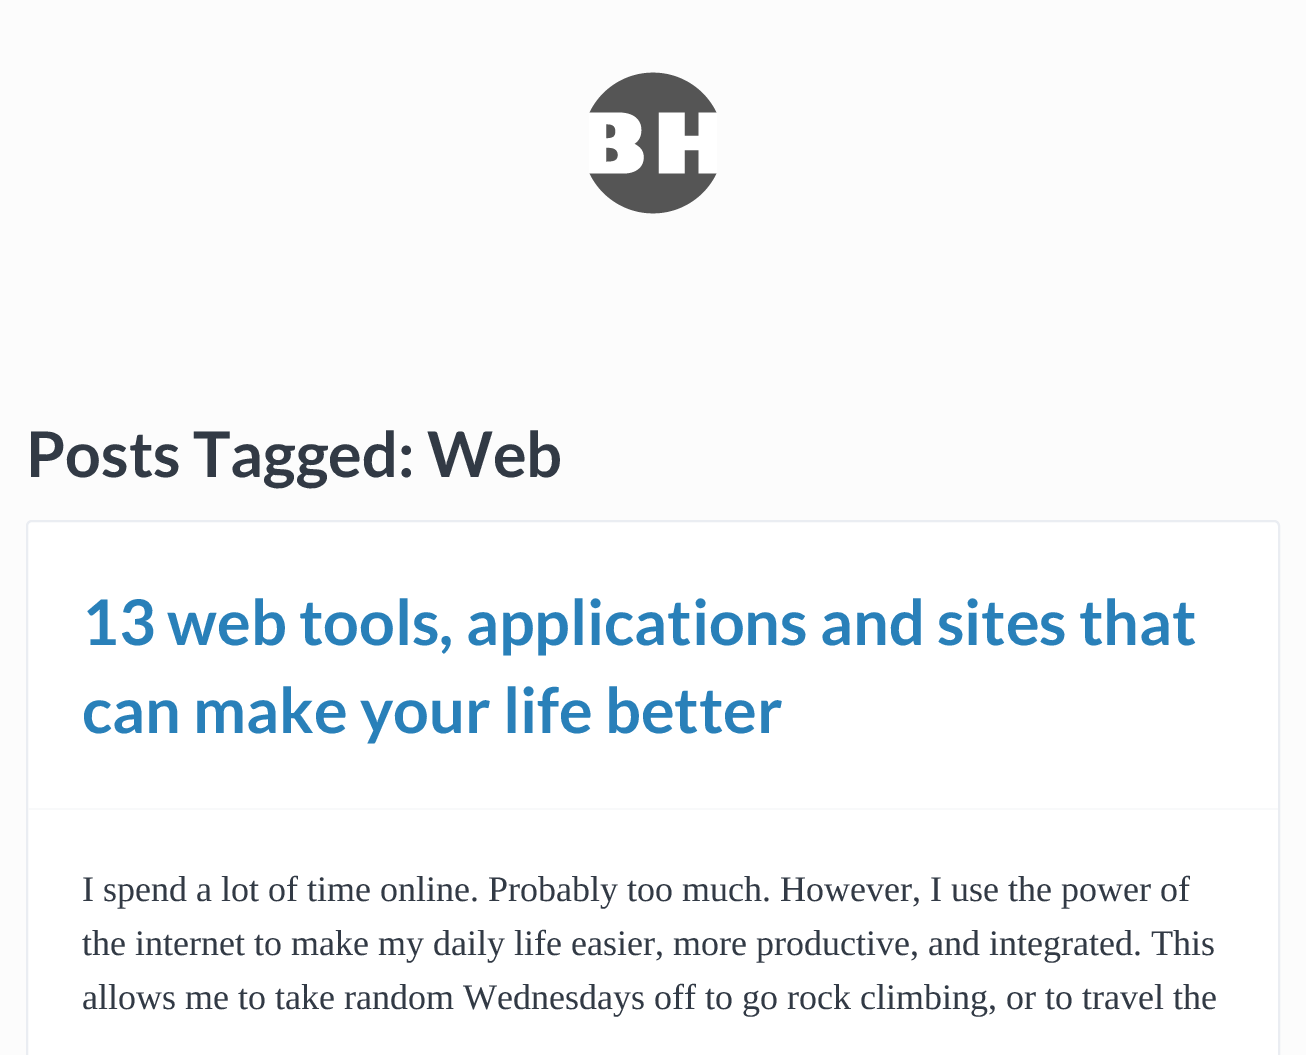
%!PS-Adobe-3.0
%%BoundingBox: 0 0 1306 1055
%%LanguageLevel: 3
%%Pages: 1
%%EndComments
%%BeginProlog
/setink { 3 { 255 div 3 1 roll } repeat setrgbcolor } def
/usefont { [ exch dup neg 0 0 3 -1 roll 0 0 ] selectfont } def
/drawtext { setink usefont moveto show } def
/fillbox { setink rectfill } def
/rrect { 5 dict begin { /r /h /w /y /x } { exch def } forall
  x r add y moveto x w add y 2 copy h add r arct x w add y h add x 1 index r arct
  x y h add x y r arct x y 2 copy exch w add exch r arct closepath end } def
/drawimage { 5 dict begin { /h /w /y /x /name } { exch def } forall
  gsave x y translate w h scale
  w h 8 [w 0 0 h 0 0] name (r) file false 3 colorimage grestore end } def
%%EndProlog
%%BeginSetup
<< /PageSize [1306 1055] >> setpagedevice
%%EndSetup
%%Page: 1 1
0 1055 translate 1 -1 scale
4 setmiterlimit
0 0 1306 1055 252 252 252 fillbox
(assets/img1.rgb) 589 72 128 142 drawimage
(Posts Tagged: Web) 26 477 /Lato-Bold 63 50 58 69 drawtext
255 255 255 setink
27 521 1252 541 5 rrect gsave fill grestore
234 237 242 setink
2 setlinewidth
stroke
28 808 1250 2 248 249 250 fillbox
(13 web tools, applications and sites that) 82 645 /Lato-Bold 63 41 128 185 drawtext
(can make your life better) 82 733 /Lato-Bold 63 41 128 185 drawtext
(I spend a lot of time online. Probably too much. However, I use the power of) 82 901 /LiberationSerif-Regular 36 50 58 69 drawtext
(the internet to make my daily life easier, more productive, and integrated. This) 82 955 /LiberationSerif-Regular 36 50 58 69 drawtext
(allows me to take random Wednesdays off to go rock climbing, or to travel the) 82 1009 /LiberationSerif-Regular 36 50 58 69 drawtext
showpage
%%EOF
